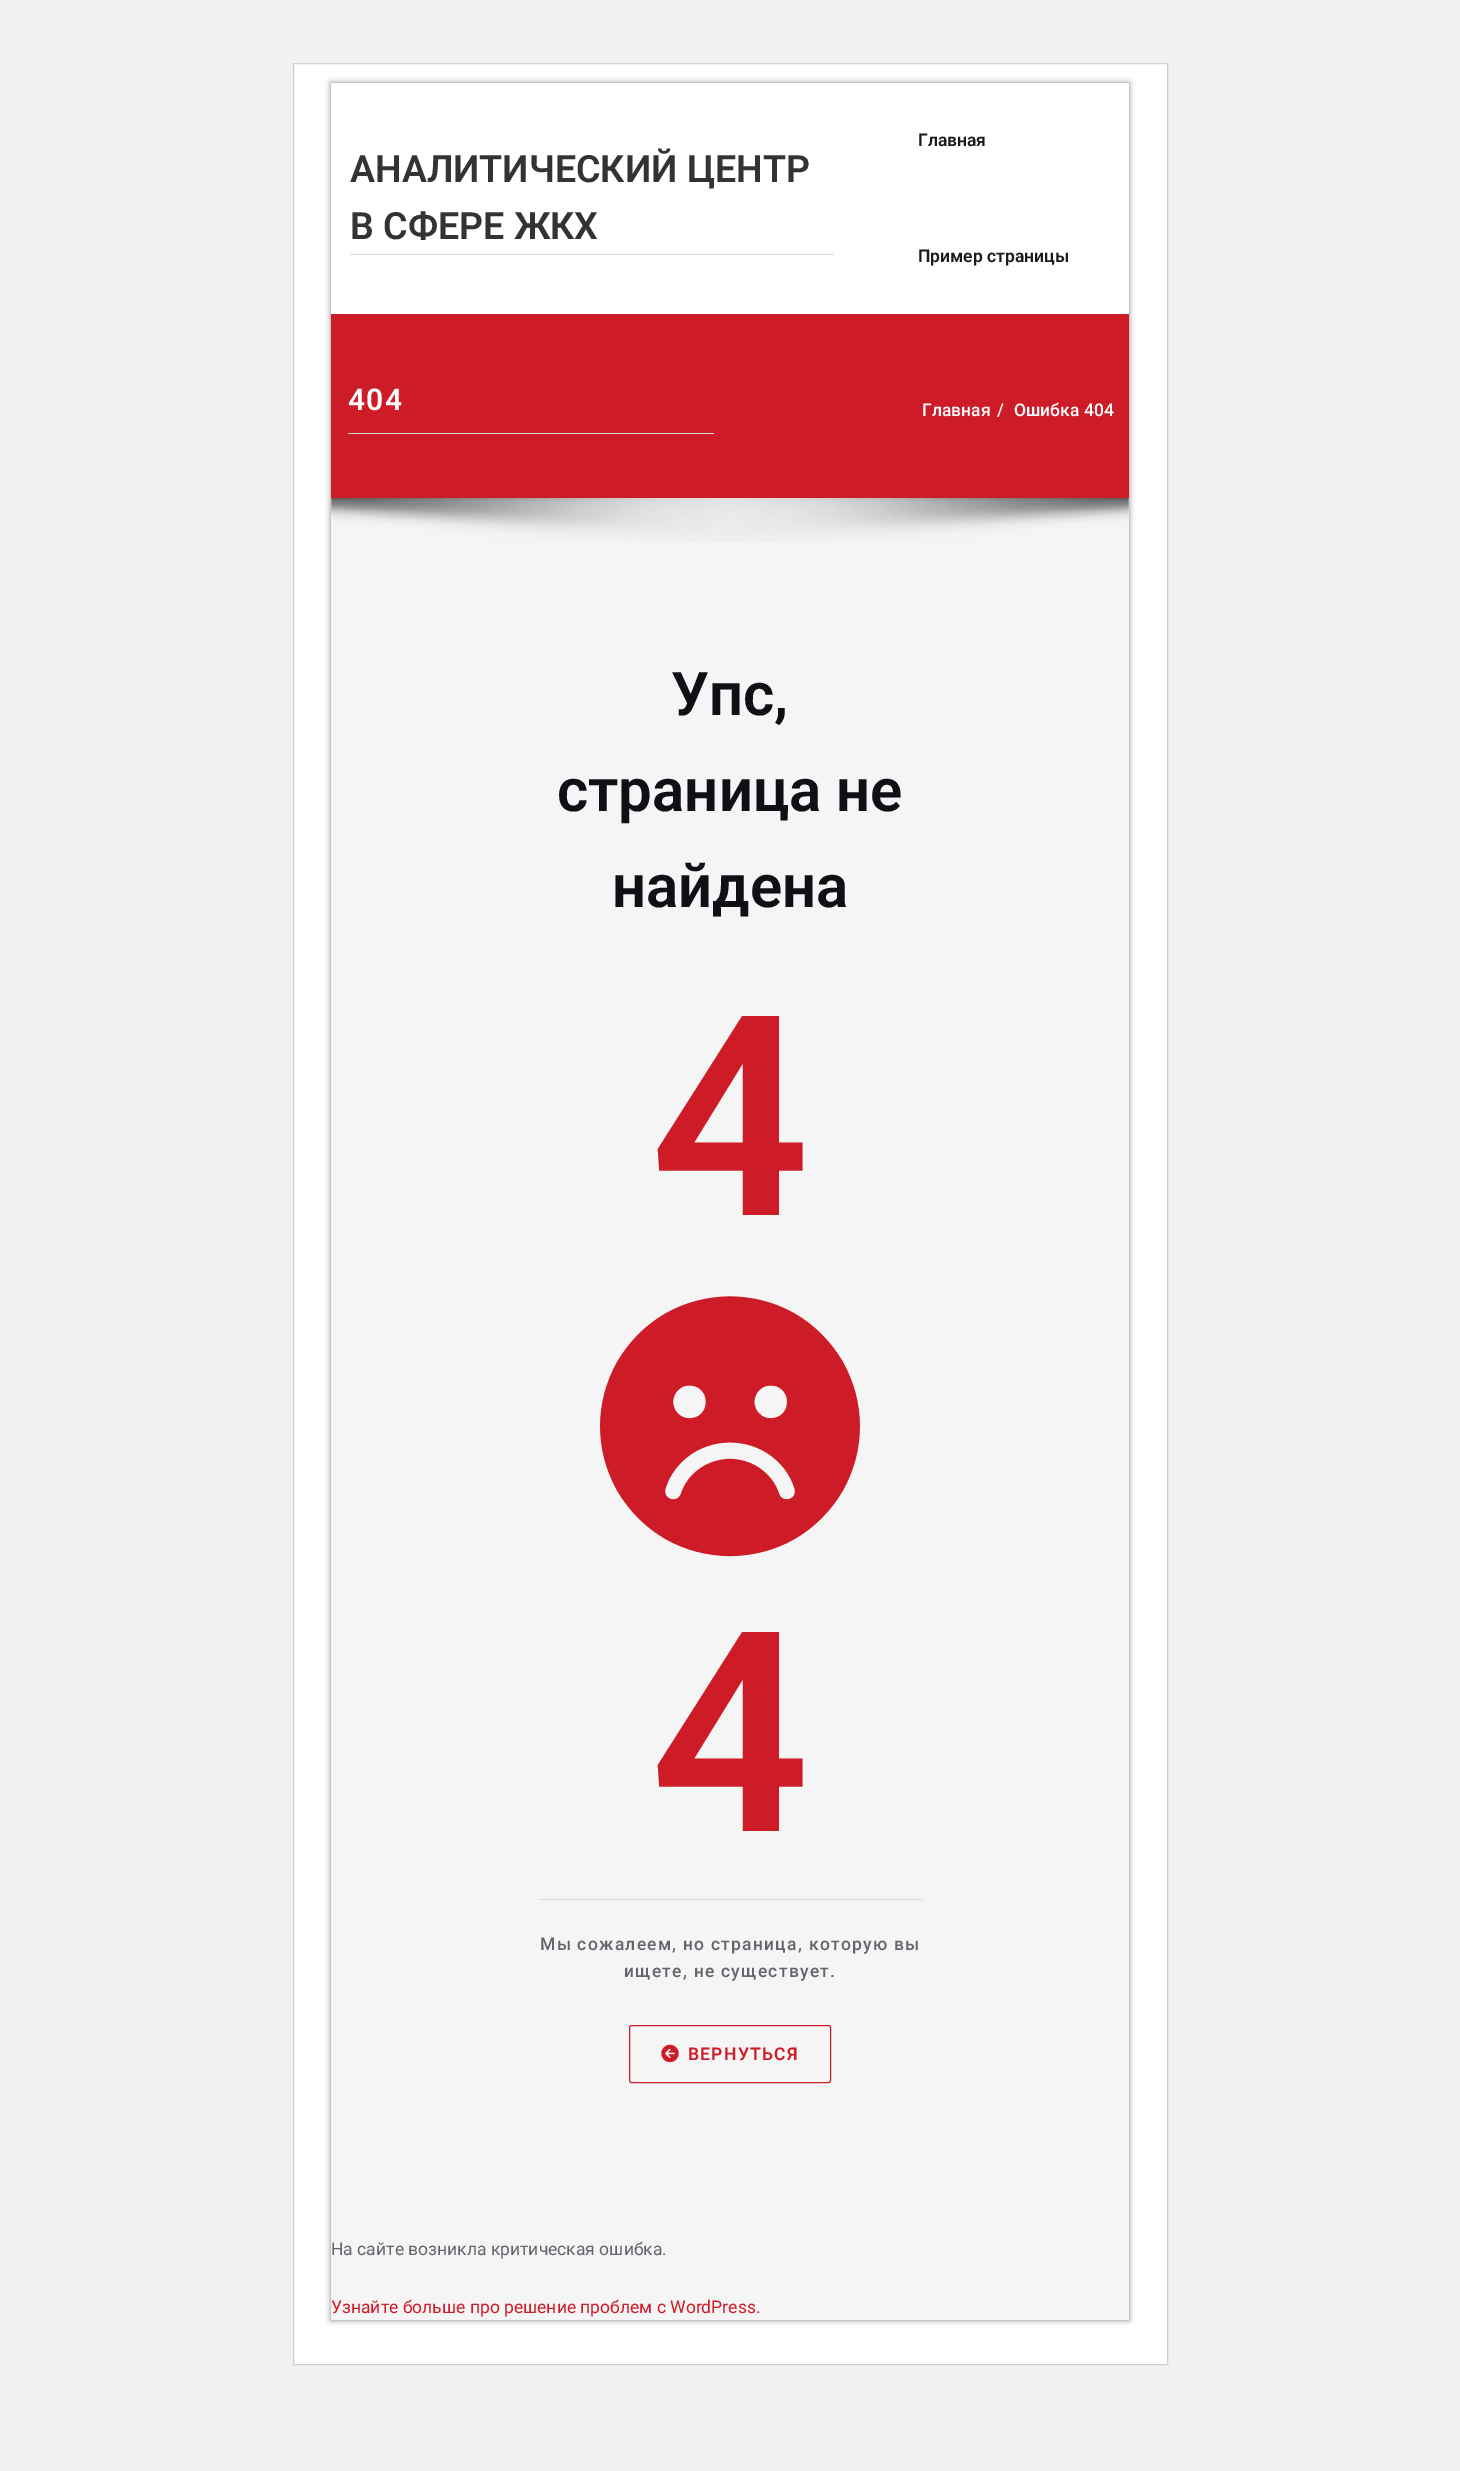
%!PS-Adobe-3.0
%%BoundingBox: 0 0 1460 2471
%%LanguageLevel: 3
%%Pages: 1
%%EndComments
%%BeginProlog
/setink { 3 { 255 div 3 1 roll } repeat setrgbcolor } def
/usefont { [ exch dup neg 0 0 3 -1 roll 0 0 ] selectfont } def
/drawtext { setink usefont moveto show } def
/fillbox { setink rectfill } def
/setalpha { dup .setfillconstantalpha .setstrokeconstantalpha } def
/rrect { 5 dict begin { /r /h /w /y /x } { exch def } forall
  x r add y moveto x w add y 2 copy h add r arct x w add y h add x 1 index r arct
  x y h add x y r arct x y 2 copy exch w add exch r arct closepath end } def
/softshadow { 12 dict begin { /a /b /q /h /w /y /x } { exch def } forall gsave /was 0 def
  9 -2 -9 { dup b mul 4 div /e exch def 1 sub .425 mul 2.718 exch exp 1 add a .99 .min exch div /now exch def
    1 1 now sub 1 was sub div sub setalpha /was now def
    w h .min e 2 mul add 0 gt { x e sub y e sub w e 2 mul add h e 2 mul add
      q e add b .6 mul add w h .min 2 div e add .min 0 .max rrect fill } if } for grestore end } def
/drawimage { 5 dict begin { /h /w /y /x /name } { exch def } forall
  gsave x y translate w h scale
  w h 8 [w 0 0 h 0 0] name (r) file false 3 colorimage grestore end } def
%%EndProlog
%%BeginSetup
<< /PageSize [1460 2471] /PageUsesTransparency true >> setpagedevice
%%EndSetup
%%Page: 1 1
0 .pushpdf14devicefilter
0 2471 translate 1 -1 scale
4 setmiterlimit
0 0 1460 2471 241 241 241 fillbox
255 255 255 setink
293.5 63.5 moveto 1167.5 63.5 lineto 1167.5 2364.5 lineto 293.5 2364.5 lineto closepath gsave fill grestore
204 208 212 setink
stroke
0 0 0 setink
331 83 798 2237 0 3 0.5 softshadow
331 498 798 1822 245 245 245 fillbox
331 83 798 231 255 255 255 fillbox
350 254 484 1 218 218 218 fillbox
(АНАЛИТИЧЕСКИЙ ЦЕНТР) 350 182 /Roboto-SemiBold 37.5 51 51 51 drawtext
(В СФЕРЕ ЖКХ) 350 239 /Roboto-SemiBold 37.5 51 51 51 drawtext
(Главная) 918 146 /Roboto-SemiBold 17.5 27 27 27 drawtext
(Пример страницы) 918 262 /Roboto-SemiBold 17.5 27 27 27 drawtext
331 314 798 184 206 27 40 fillbox
348 433 366 1 218 218 218 fillbox
/Roboto-SemiBold 30 usefont
255 255 255 setink
348 410 moveto 1.25 0 (404) ashow
(Главная) 922 416 /Roboto-Medium 17.5 255 255 255 drawtext
(/) 997 416 /Roboto-Medium 17.5 255 255 255 drawtext
(Ошибка 404) 1014 416 /Roboto-Medium 17.5 255 255 255 drawtext
(assets/img1.rgb) 331 498 798 44 drawimage
(Упс,) 671 715 /Roboto-SemiBold 60 15 15 22 drawtext
(страница не) 557 811 /Roboto-SemiBold 60 15 15 22 drawtext
(найдена) 612 907 /Roboto-SemiBold 60 15 15 22 drawtext
539 1899 384 1 218 218 218 fillbox
(4) 650 1215 /Roboto-SemiBold 280 206 27 40 drawtext
(assets/img2.rgb) 600 1296 260 261 drawimage
(4) 650 1831 /Roboto-SemiBold 280 206 27 40 drawtext
/Roboto-Medium 17.5 usefont
100 100 109 setink
540 1950 moveto 1.25 0 (Мы сожалеем, но страница, которую вы) ashow
624 1977 moveto 1.25 0 (ищете, не существует.) ashow
206 27 40 setink
629.5 2025.5 201 57 2 rrect stroke
(assets/img3.rgb) 661 2044 18 19 drawimage
/Roboto-SemiBold 17.5 usefont
688 2060 moveto 1.25 0 (ВЕРНУТЬСЯ) ashow
(На сайте возникла критическая ошибка.) 331 2255 /Roboto-Regular 17.5 100 100 109 drawtext
(Узнайте больше про решение проблем с WordPress.) 331 2313 /Roboto-Regular 17.5 206 27 40 drawtext
.poppdf14devicefilter showpage
%%EOF
